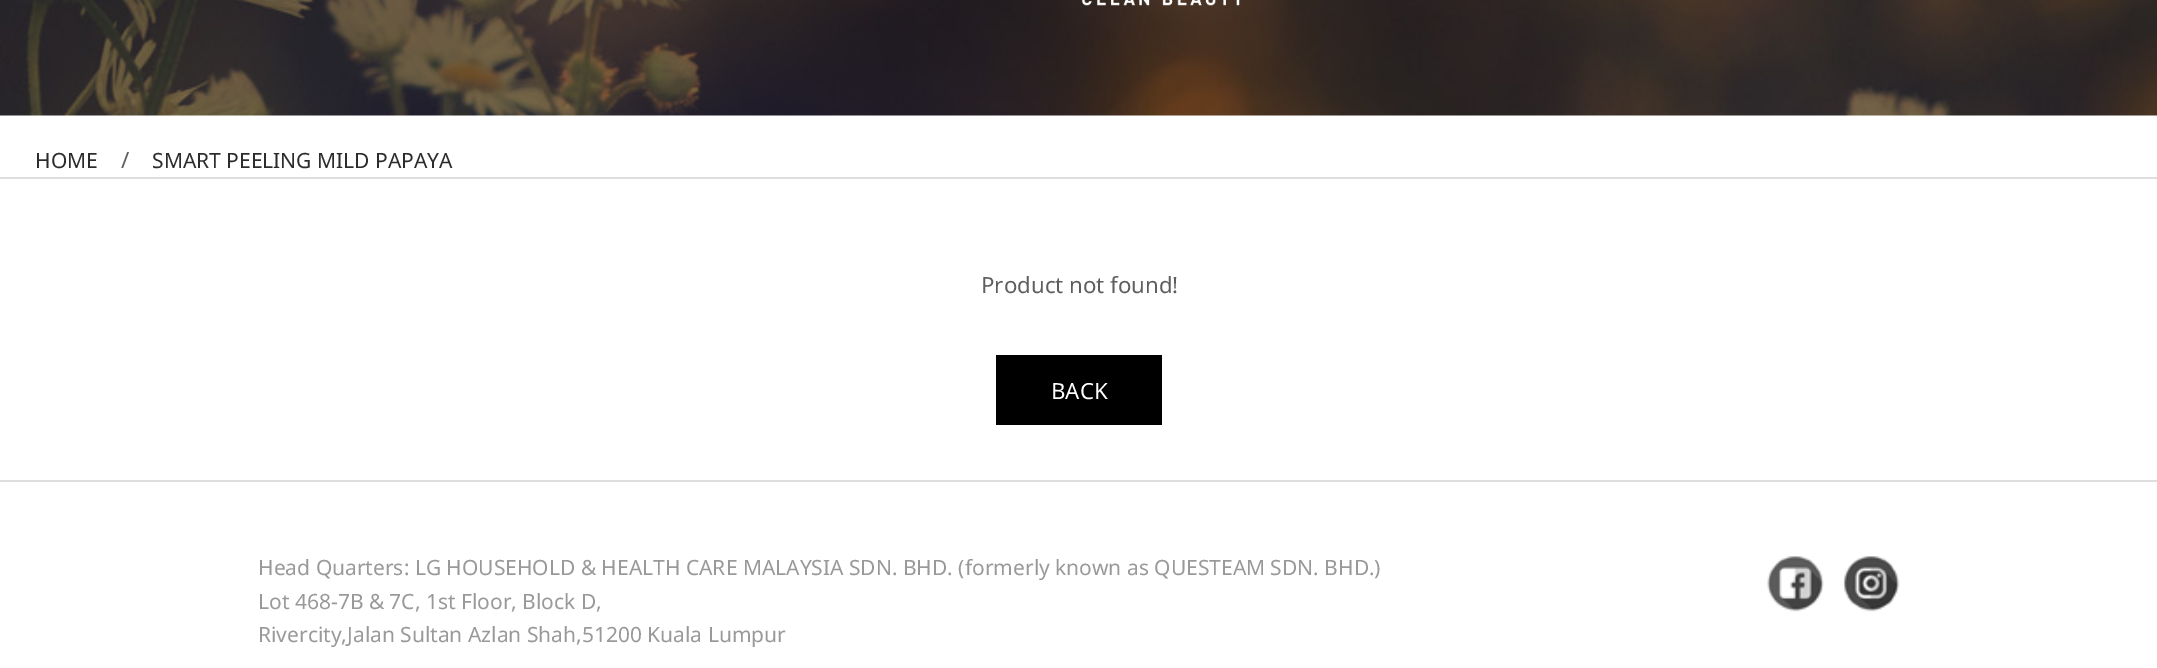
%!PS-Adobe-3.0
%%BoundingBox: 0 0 2157 668
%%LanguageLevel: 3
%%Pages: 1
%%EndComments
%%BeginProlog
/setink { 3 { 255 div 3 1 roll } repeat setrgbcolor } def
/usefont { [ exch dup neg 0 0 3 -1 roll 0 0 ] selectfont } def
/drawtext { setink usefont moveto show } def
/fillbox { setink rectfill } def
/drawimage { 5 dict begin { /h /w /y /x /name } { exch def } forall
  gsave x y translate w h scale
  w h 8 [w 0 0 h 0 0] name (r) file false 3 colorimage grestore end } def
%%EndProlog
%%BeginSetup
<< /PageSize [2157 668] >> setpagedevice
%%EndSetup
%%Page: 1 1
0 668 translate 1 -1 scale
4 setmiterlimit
0 0 2157 668 255 255 255 fillbox
(assets/img1.rgb) 0 0 2157 116 drawimage
(assets/img2.rgb) 1081 0 159 6 drawimage
0 177 2157 2 222 222 222 fillbox
(HOME) 35 168 /NotoSans-Regular 21 44 44 44 drawtext
(/) 121 168 /NotoSans-Regular 22.25 94 94 94 drawtext
(SMART PEELING MILD PAPAYA) 152 168 /NotoSans-Regular 21 44 44 44 drawtext
(Product not found!) 981 293 /NotoSans-Regular 22.25 94 94 94 drawtext
996 355 166 70 0 0 0 fillbox
(BACK) 1051 399 /NotoSans-Regular 22.25 255 255 255 drawtext
0 480 2157 2 222 222 222 fillbox
(Head Quarters: LG HOUSEHOLD & HEALTH CARE MALAYSIA SDN. BHD. \(formerly known as QUESTEAM SDN. BHD.\)) 258 575 /NotoSans-Regular 21 153 153 153 drawtext
(Lot 468-7B & 7C, 1st Floor, Block D,) 258 609 /NotoSans-Regular 21 153 153 153 drawtext
(Rivercity,Jalan Sultan Azlan Shah,51200 Kuala Lumpur) 258 642 /NotoSans-Regular 21 153 153 153 drawtext
(assets/img3.rgb) 1767 556 57 56 drawimage
(assets/img4.rgb) 1843 556 57 56 drawimage
showpage
%%EOF
